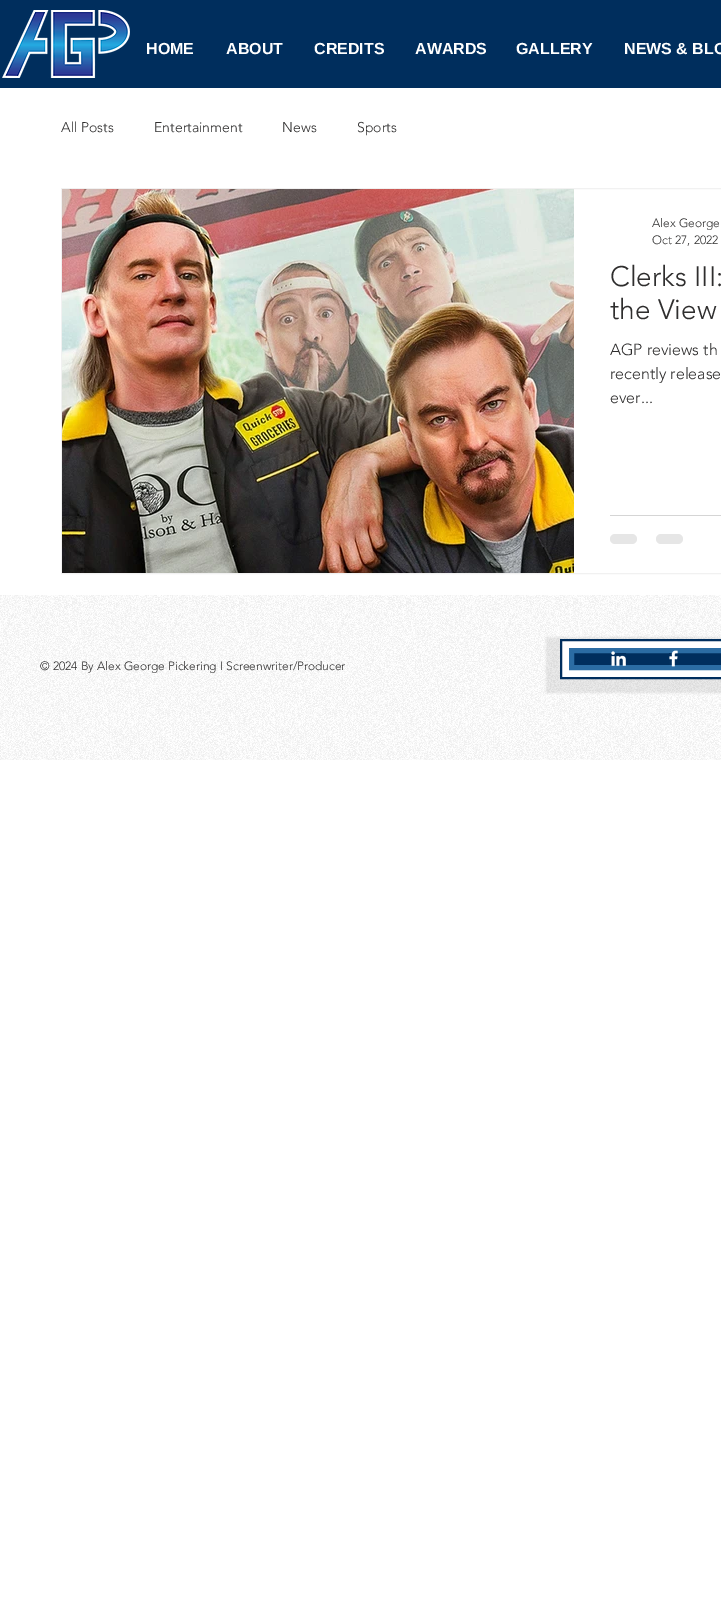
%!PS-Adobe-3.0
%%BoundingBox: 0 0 721 1603
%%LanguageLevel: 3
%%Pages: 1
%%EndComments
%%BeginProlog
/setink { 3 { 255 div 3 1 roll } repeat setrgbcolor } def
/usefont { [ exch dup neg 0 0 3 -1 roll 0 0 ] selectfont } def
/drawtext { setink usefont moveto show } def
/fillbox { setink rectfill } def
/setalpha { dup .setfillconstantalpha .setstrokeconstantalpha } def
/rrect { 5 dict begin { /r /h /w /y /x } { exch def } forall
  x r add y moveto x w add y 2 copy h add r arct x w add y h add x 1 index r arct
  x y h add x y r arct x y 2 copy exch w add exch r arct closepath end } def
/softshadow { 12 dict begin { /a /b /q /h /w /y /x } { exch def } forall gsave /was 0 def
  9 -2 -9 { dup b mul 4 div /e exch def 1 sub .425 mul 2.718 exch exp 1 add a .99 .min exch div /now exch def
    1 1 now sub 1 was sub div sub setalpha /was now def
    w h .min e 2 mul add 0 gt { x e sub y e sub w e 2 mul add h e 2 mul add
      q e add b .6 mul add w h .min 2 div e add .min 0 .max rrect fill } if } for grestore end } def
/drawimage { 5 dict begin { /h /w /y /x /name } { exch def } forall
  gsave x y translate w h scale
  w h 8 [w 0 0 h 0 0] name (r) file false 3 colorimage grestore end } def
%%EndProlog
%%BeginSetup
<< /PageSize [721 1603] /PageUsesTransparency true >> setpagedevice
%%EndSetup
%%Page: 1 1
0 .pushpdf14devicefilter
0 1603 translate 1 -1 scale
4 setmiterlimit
0 0 721 1603 255 255 255 fillbox
0 0 721 88 0 46 93 fillbox
(assets/img1.rgb) 2 10 128 68 drawimage
(HOME) 146 54 /LiberationSans-Bold 16 255 255 255 drawtext
(ABOUT) 226 54 /LiberationSans-Bold 16 255 255 255 drawtext
(CREDITS) 314 54 /LiberationSans-Bold 16 255 255 255 drawtext
(AWARDS) 415 54 /LiberationSans-Bold 16 255 255 255 drawtext
(GALLERY) 516 54 /LiberationSans-Bold 16 255 255 255 drawtext
(NEWS & BLO) 624 54 /LiberationSans-Bold 16 255 255 255 drawtext
(All Posts) 61 132 /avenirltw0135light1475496-Light 14 47 46 46 drawtext
(Entertainment) 154 132 /avenirltw0135light1475496-Light 14 47 46 46 drawtext
(News) 282 132 /avenirltw0135light1475496-Light 14 47 46 46 drawtext
(Sports) 357 132 /avenirltw0135light1475496-Light 14 47 46 46 drawtext
241 241 241 setink
61.5 188.5 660 385 rectstroke
(assets/img2.rgb) 62 189 512 384 drawimage
(Alex George) 652 227 /avenirltw0135light1475496-Light 12 47 46 46 drawtext
(Oct 27, 2022) 652 244 /avenirltw0135light1475496-Light 12 47 46 46 drawtext
(Clerks III:) 610 286 /avenirltw0135light1475496-Light 28 47 46 46 drawtext
(the View) 610 319 /avenirltw0135light1475496-Light 28 47 46 46 drawtext
(AGP reviews th) 610 355 /avenirltw0135light1475496-Light 16 47 46 46 drawtext
(recently release) 610 379 /avenirltw0135light1475496-Light 16 47 46 46 drawtext
(ever...) 610 403 /avenirltw0135light1475496-Light 16 47 46 46 drawtext
610 515 111 1 213 213 213 fillbox
230 230 230 setink
610 534 27 10 5 rrect fill
656 534 27 10 5 rrect fill
(assets/img3.rgb) 0 595 721 165 drawimage
(© 2024 By Alex George Pickering I Screenwriter/Producer) 40 670 /avenirltw0135light1475496-Light 12 47 46 46 drawtext
117 117 117 setink
546 637 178 56 0 1 0.15 softshadow
255 255 255 setink
561 640 moveto 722 640 lineto 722 678 lineto 561 678 lineto closepath gsave fill grestore
0 46 93 setink
2 setlinewidth
stroke
571.5 650.5 moveto 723.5 650.5 lineto 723.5 667.5 lineto 571.5 667.5 lineto closepath gsave fill grestore
43 108 163 setink
5 setlinewidth
stroke
(assets/img4.rgb) 611 651 15 15 drawimage
(assets/img5.rgb) 669 650 9 17 drawimage
.poppdf14devicefilter showpage
%%EOF
